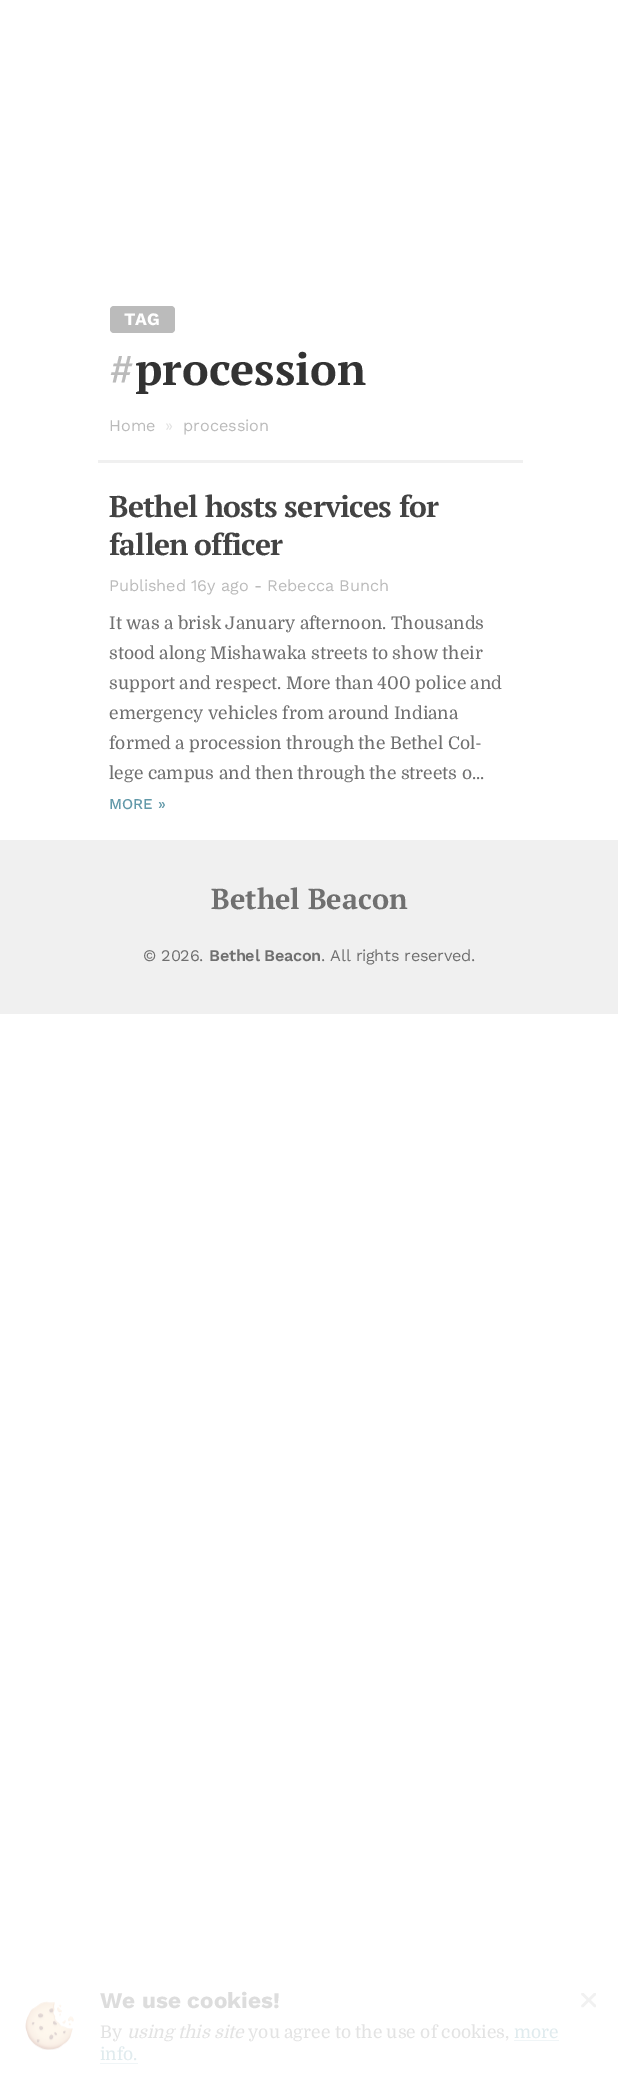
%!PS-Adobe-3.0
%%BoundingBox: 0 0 618 2082
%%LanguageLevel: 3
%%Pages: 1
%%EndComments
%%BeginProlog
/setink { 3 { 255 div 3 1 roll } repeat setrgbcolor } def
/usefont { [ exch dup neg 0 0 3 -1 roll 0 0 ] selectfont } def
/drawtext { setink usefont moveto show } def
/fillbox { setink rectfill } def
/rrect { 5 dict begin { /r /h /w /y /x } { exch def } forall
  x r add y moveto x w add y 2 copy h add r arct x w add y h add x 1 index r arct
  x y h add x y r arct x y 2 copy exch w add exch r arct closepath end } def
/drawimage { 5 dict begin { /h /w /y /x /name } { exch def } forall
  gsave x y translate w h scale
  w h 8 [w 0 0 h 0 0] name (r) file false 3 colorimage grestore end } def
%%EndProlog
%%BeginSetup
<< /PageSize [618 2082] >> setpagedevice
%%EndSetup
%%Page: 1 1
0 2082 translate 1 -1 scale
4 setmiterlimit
0 0 618 2082 255 255 255 fillbox
187 187 187 setink
110 306 65 27 4 rrect fill
(TAG) 124 325 /WorkSans-Bold 17.5 255 255 255 drawtext
(#) 109 385 /PTSerif-Bold 45 187 187 187 drawtext
(procession) 135 385 /PTSerif-Bold 45 51 51 51 drawtext
(Home) 109 431 /WorkSans-Regular 16.25 187 187 187 drawtext
(») 165 431 /WorkSans-Regular 16.25 227 227 227 drawtext
(procession) 183 431 /WorkSans-Regular 16.25 187 187 187 drawtext
98 460 425 3 240 240 240 fillbox
/PTSerif-Bold 30 usefont
67 67 67 setink
109 517 moveto -0.75 0 (Bethel hosts services for) ashow
109 555 moveto -1 0 32 -0.75 0 (fallen officer) awidthshow
/WorkSans-Regular 16.25 usefont
187 187 187 setink
109 591 moveto -0.1 0 (Published 16y ago - Rebecca Bunch) ashow
(It was a brisk January afternoon. Thousands) 109 629 /Domine-Regular 17.5 112 112 112 drawtext
(stood along Mishawaka streets to show their) 109 659 /Domine-Regular 17.5 112 112 112 drawtext
(support and respect. More than 400 police and) 109 689 /Domine-Regular 17.5 112 112 112 drawtext
(emergency vehicles from around Indiana) 109 719 /Domine-Regular 17.5 112 112 112 drawtext
(formed a procession through the Bethel Col-) 109 749 /Domine-Regular 17.5 112 112 112 drawtext
(lege campus and then through the streets o...) 109 779 /Domine-Regular 17.5 112 112 112 drawtext
(MORE ») 109 809 /WorkSans-Medium 15 98 153 169 drawtext
0 840 618 174 240 240 240 fillbox
(Bethel Beacon) 211 909 /PTSerif-Bold 28.75 112 112 112 drawtext
/WorkSans-Regular 16.25 usefont
143 961 moveto -0.25 0 (© 2026.) ashow
/WorkSans-SemiBold 16.25 usefont
209 961 moveto -0.25 0 (Bethel Beacon) ashow
/WorkSans-Regular 16.25 usefont
321 961 moveto -0.25 0 (. All rights reserved.) ashow
(assets/img1.rgb) 25 2001 49 49 drawimage
(We use cookies!) 100 2008 /WorkSans-Bold 22.5 221 221 221 drawtext
gsave
581 1993 15 15 rectclip
241 241 241 setink
2.5 setlinewidth
1 setlinecap
582.5 1994 moveto 595 2006 lineto 595 1994 moveto 582.5 2006 lineto stroke
grestore
(By) 100 2038 /Domine-Regular 17.5 227 227 227 drawtext
(using this site) 127 2038 /Domine-Italic 17.5 227 227 227 drawtext
(you agree to the use of cookies,) 248 2038 /Domine-Regular 17.5 227 227 227 drawtext
(more) 514 2038 /Domine-Regular 17.5 224 235 238 drawtext
514 2040 45 1 240 245 247 fillbox
(info.) 100 2060 /Domine-Regular 17.5 224 235 238 drawtext
100 2063 38 1 240 245 247 fillbox
showpage
%%EOF
